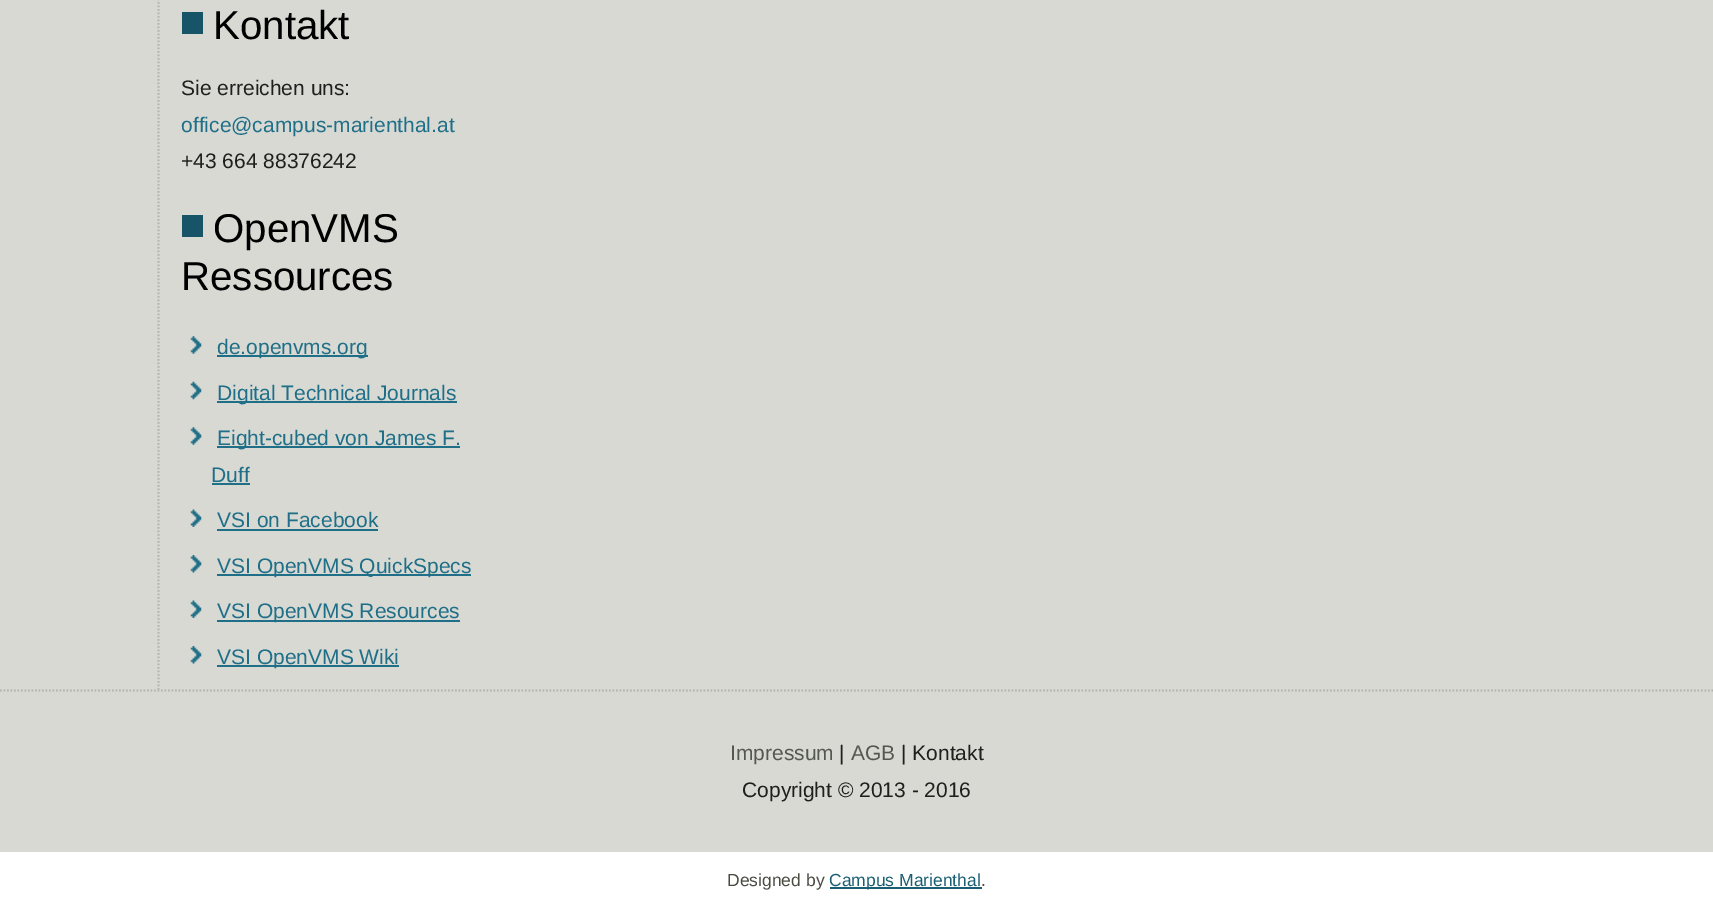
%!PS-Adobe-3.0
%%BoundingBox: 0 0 1713 906
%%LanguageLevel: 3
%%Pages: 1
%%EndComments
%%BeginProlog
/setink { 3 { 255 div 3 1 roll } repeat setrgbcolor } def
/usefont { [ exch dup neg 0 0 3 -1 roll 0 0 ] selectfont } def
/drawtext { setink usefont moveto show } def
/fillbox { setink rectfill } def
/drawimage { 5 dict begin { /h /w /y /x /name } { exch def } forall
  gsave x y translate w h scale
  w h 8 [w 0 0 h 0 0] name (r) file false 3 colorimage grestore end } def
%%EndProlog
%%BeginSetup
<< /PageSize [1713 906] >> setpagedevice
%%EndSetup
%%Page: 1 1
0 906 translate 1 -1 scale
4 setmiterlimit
0 0 1713 906 255 255 255 fillbox
0 0 1713 852 216 217 211 fillbox
177 180 172 setink
1.8 setlinewidth
[1.75 1.75] 0 setdash
158.5 -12 moveto 158.5 689.5 lineto stroke
182 12 21 22 24 84 104 fillbox
(Kontakt) 213 39 /LiberationSans-Regular 40.25 0 0 0 drawtext
(Sie erreichen uns:) 181 95 /LiberationSans-Regular 21 31 32 29 drawtext
(office@campus-marienthal.at) 181 132 /LiberationSans-Regular 21 31 111 137 drawtext
(+43 664 88376242) 181 168 /LiberationSans-Regular 21 31 32 29 drawtext
182 215 21 22 24 84 104 fillbox
(OpenVMS) 213 242 /LiberationSans-Regular 40.25 0 0 0 drawtext
(Ressources) 181 290 /LiberationSans-Regular 40.25 0 0 0 drawtext
(assets/img1.rgb) 190 336 12 18 drawimage
217 355 151 2 31 111 137 fillbox
(de.openvms.org) 217 354 /LiberationSans-Regular 21 31 111 137 drawtext
(assets/img2.rgb) 190 381 12 19 drawimage
217 401 240 2 31 111 137 fillbox
(Digital Technical Journals) 217 400 /LiberationSans-Regular 21 31 111 137 drawtext
(assets/img1.rgb) 190 427 12 18 drawimage
217 446 243 2 31 111 137 fillbox
(Eight-cubed von James F.) 217 445 /LiberationSans-Regular 21 31 111 137 drawtext
(Duff) 211 482 /LiberationSans-Regular 21 31 111 137 drawtext
212 483 38 2 31 111 137 fillbox
(assets/img3.rgb) 190 509 12 18 drawimage
(VSI on Facebook) 217 527 /LiberationSans-Regular 21 31 111 137 drawtext
217 529 161 2 31 111 137 fillbox
(assets/img4.rgb) 190 555 12 18 drawimage
217 574 254 2 31 111 137 fillbox
(VSI OpenVMS QuickSpecs) 217 573 /LiberationSans-Regular 21 31 111 137 drawtext
(assets/img3.rgb) 190 600 12 18 drawimage
217 620 243 2 31 111 137 fillbox
(VSI OpenVMS Resources) 217 618 /LiberationSans-Regular 21 31 111 137 drawtext
(assets/img4.rgb) 190 646 12 18 drawimage
217 665 182 2 31 111 137 fillbox
(VSI OpenVMS Wiki) 217 664 /LiberationSans-Regular 21 31 111 137 drawtext
177 180 172 setink
0 690.5 moveto 1713 690.5 lineto stroke
(Impressum) 730 760 /LiberationSans-Regular 21 85 88 80 drawtext
(|) 839 760 /LiberationSans-Regular 21 31 32 29 drawtext
(AGB) 851 760 /LiberationSans-Regular 21 85 88 80 drawtext
(| Kontakt) 901 760 /LiberationSans-Regular 21 31 32 29 drawtext
(Copyright © 2013 - 2016) 742 797 /LiberationSans-Regular 21 31 32 29 drawtext
(Designed by) 727 886 /LiberationSans-Regular 17.5 74 76 66 drawtext
830 887 152 2 26 94 116 fillbox
(Campus Marienthal) 829 886 /LiberationSans-Regular 17.5 26 94 116 drawtext
(.) 981 886 /LiberationSans-Regular 17.5 74 76 66 drawtext
showpage
%%EOF
